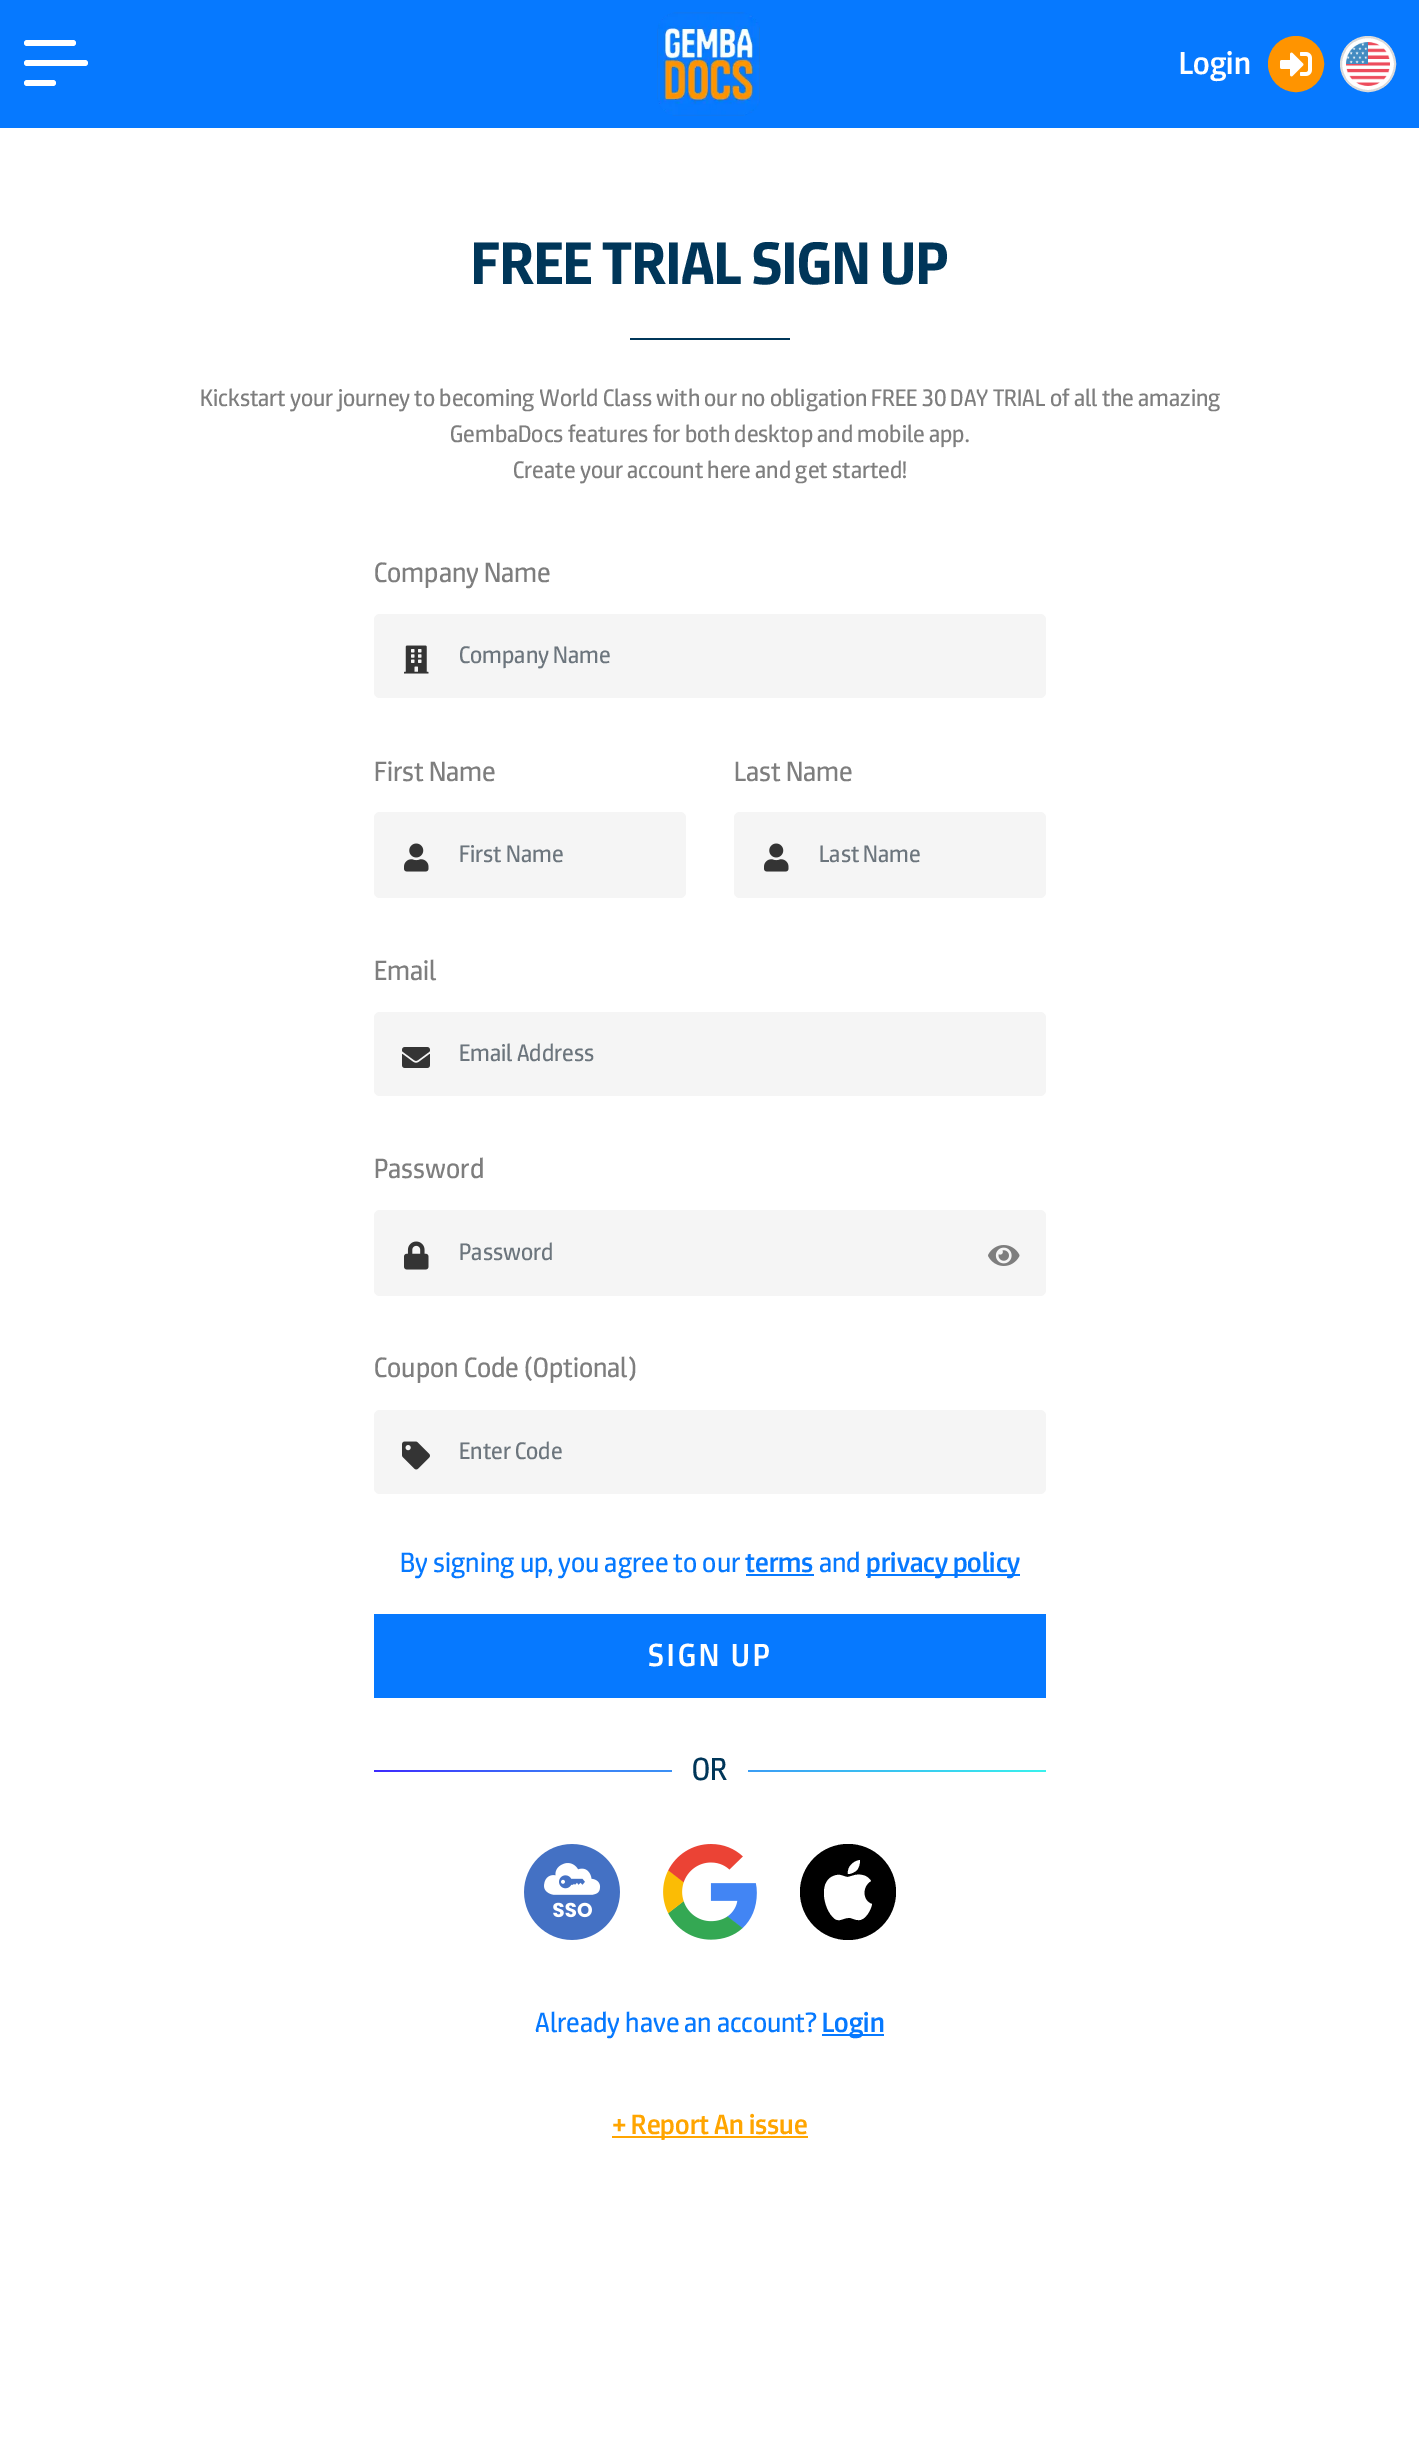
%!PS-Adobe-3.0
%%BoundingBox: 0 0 1419 2464
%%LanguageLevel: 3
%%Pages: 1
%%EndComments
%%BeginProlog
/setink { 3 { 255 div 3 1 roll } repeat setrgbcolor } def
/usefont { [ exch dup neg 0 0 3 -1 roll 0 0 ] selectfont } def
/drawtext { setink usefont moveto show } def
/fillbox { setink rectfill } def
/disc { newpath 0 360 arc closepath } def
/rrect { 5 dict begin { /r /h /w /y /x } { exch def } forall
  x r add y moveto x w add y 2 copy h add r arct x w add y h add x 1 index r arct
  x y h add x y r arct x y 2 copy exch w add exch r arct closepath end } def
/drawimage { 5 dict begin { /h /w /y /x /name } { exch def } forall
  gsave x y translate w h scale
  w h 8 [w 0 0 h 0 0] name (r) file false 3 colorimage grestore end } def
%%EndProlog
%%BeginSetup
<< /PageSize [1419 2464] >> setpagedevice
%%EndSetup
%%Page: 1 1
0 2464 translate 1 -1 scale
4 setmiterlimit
0 0 1419 2464 255 255 255 fillbox
0 0 1419 128 6 121 255 fillbox
255 255 255 setink
24 40 52 6 3 rrect fill
24 60 64 6 3 rrect fill
24 80 32 6 3 rrect fill
(assets/img1.rgb) 657 12 103 104 drawimage
(Login) 1179 74 /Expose-Medium 32 255 255 255 drawtext
255 148 0 setink
1296 64 27 disc gsave fill grestore
2 setlinewidth
stroke
(assets/img2.rgb) 1280 52 32 25 drawimage
255 255 255 setink
1368 64 27 disc gsave fill grestore
218 218 218 setink
stroke
(assets/img3.rgb) 1346 42 44 44 drawimage
(FREE TRIAL SIGN UP) 471 284 /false-Bold 60 0 54 89 drawtext
630 338 160 2 0 54 89 fillbox
(Kickstart your journey to becoming World Class with our no obligation FREE 30 DAY TRIAL of all the amazing) 200 406 /false-Regular 24 126 126 126 drawtext
(GembaDocs features for both desktop and mobile app.) 450 442 /false-Regular 24 126 126 126 drawtext
(Create your account here and get started!) 513 478 /false-Regular 24 126 126 126 drawtext
(Company Name) 374 582 /false-Regular 28 126 126 126 drawtext
245 245 245 setink
374 614 672 84 6 rrect fill
(assets/img4.rgb) 404 645 25 29 drawimage
(Company Name) 459 663 /false-Regular 24 108 117 125 drawtext
(First Name) 374 781 /false-Regular 28 126 126 126 drawtext
245 245 245 setink
374 812 312 86 6 rrect fill
(assets/img5.rgb) 404 843 25 29 drawimage
(First Name) 459 862 /false-Regular 24 108 117 125 drawtext
(Last Name) 734 781 /false-Regular 28 126 126 126 drawtext
245 245 245 setink
734 812 312 86 6 rrect fill
(assets/img5.rgb) 764 843 25 29 drawimage
(Last Name) 819 862 /false-Regular 24 108 117 125 drawtext
(Email) 374 980 /false-Regular 28 126 126 126 drawtext
245 245 245 setink
374 1012 672 84 6 rrect fill
(assets/img6.rgb) 402 1047 28 21 drawimage
(Email Address) 459 1061 /false-Regular 24 108 117 125 drawtext
(Password) 374 1178 /false-Regular 28 126 126 126 drawtext
245 245 245 setink
374 1210 672 86 6 rrect fill
(assets/img7.rgb) 404 1241 25 29 drawimage
(Password) 459 1260 /false-Regular 24 108 117 125 drawtext
(assets/img8.rgb) 988 1245 32 21 drawimage
(Coupon Code \(Optional\)) 374 1377 /false-Regular 28 126 126 126 drawtext
245 245 245 setink
374 1410 672 84 6 rrect fill
(assets/img9.rgb) 402 1441 28 29 drawimage
(Enter Code) 459 1459 /false-Regular 24 108 117 125 drawtext
(By signing up, you agree to our) 400 1572 /false-Regular 28 6 121 255 drawtext
(terms) 745 1572 /Expose-Medium 28 6 121 255 drawtext
746 1574 68 2 6 121 255 fillbox
(and) 819 1572 /false-Regular 28 6 121 255 drawtext
866 1574 154 2 6 121 255 fillbox
(privacy policy) 866 1572 /Expose-Medium 28 6 121 255 drawtext
374 1614 672 84 6 121 255 fillbox
/Expose-Medium 32 usefont
255 255 255 setink
648 1666 moveto 3.25 0 (SIGN UP) ashow
gsave 374 1770 moveto 1046 1770 lineto 1046 1772 lineto 374 1772 lineto closepath clip newpath
<< /ShadingType 2 /ColorSpace /DeviceRGB /Coords [530 1603 890 1939] /Extend [true true] /Function << /FunctionType 3 /Domain [0 1] /Functions [<< /FunctionType 2 /Domain [0 1] /C0 [0.243 0.165 0.996] /C1 [0.231 0.494 0.969] /N 1 >> << /FunctionType 2 /Domain [0 1] /C0 [0.231 0.494 0.969] /C1 [0.231 0.643 0.957] /N 1 >> << /FunctionType 2 /Domain [0 1] /C0 [0.231 0.643 0.957] /C1 [0.224 0.949 0.929] /N 1 >>] /Bounds [0.29 0.6] /Encode [0 1 0 1 0 1] >> >> shfill grestore
672 1770 76 2 255 255 255 fillbox
(OR) 692 1780 /false-Regular 32 0 54 89 drawtext
(assets/img10.rgb) 524 1844 96 96 drawimage
(assets/img11.rgb) 663 1844 94 96 drawimage
0 0 0 setink
848 1892 48 disc fill
255 255 255 setink
848 1877 moveto 844 1877 841 1874 837 1875 curveto 817 1878 823 1910 835 1919 curveto 840 1922 843 1918 848 1918 curveto 851 1917 854 1920 858 1920 curveto 865 1921 871 1910 872 1904 curveto 862 1901 862 1886 871 1881 curveto 867 1875 861 1874 855 1875 curveto closepath 857 1870 moveto 859 1867 860 1864 860 1860 curveto 853 1861 847 1867 848 1874 curveto 851 1874 855 1872 857 1870 curveto closepath fill
(Already have an account?) 535 2032 /false-Regular 28 6 121 255 drawtext
822 2034 62 2 6 121 255 fillbox
(Login) 822 2032 /Expose-Medium 28 6 121 255 drawtext
612 2136 196 2 255 165 0 fillbox
(+ Report An issue) 612 2134 /Expose-Medium 28 255 165 0 drawtext
showpage
%%EOF
